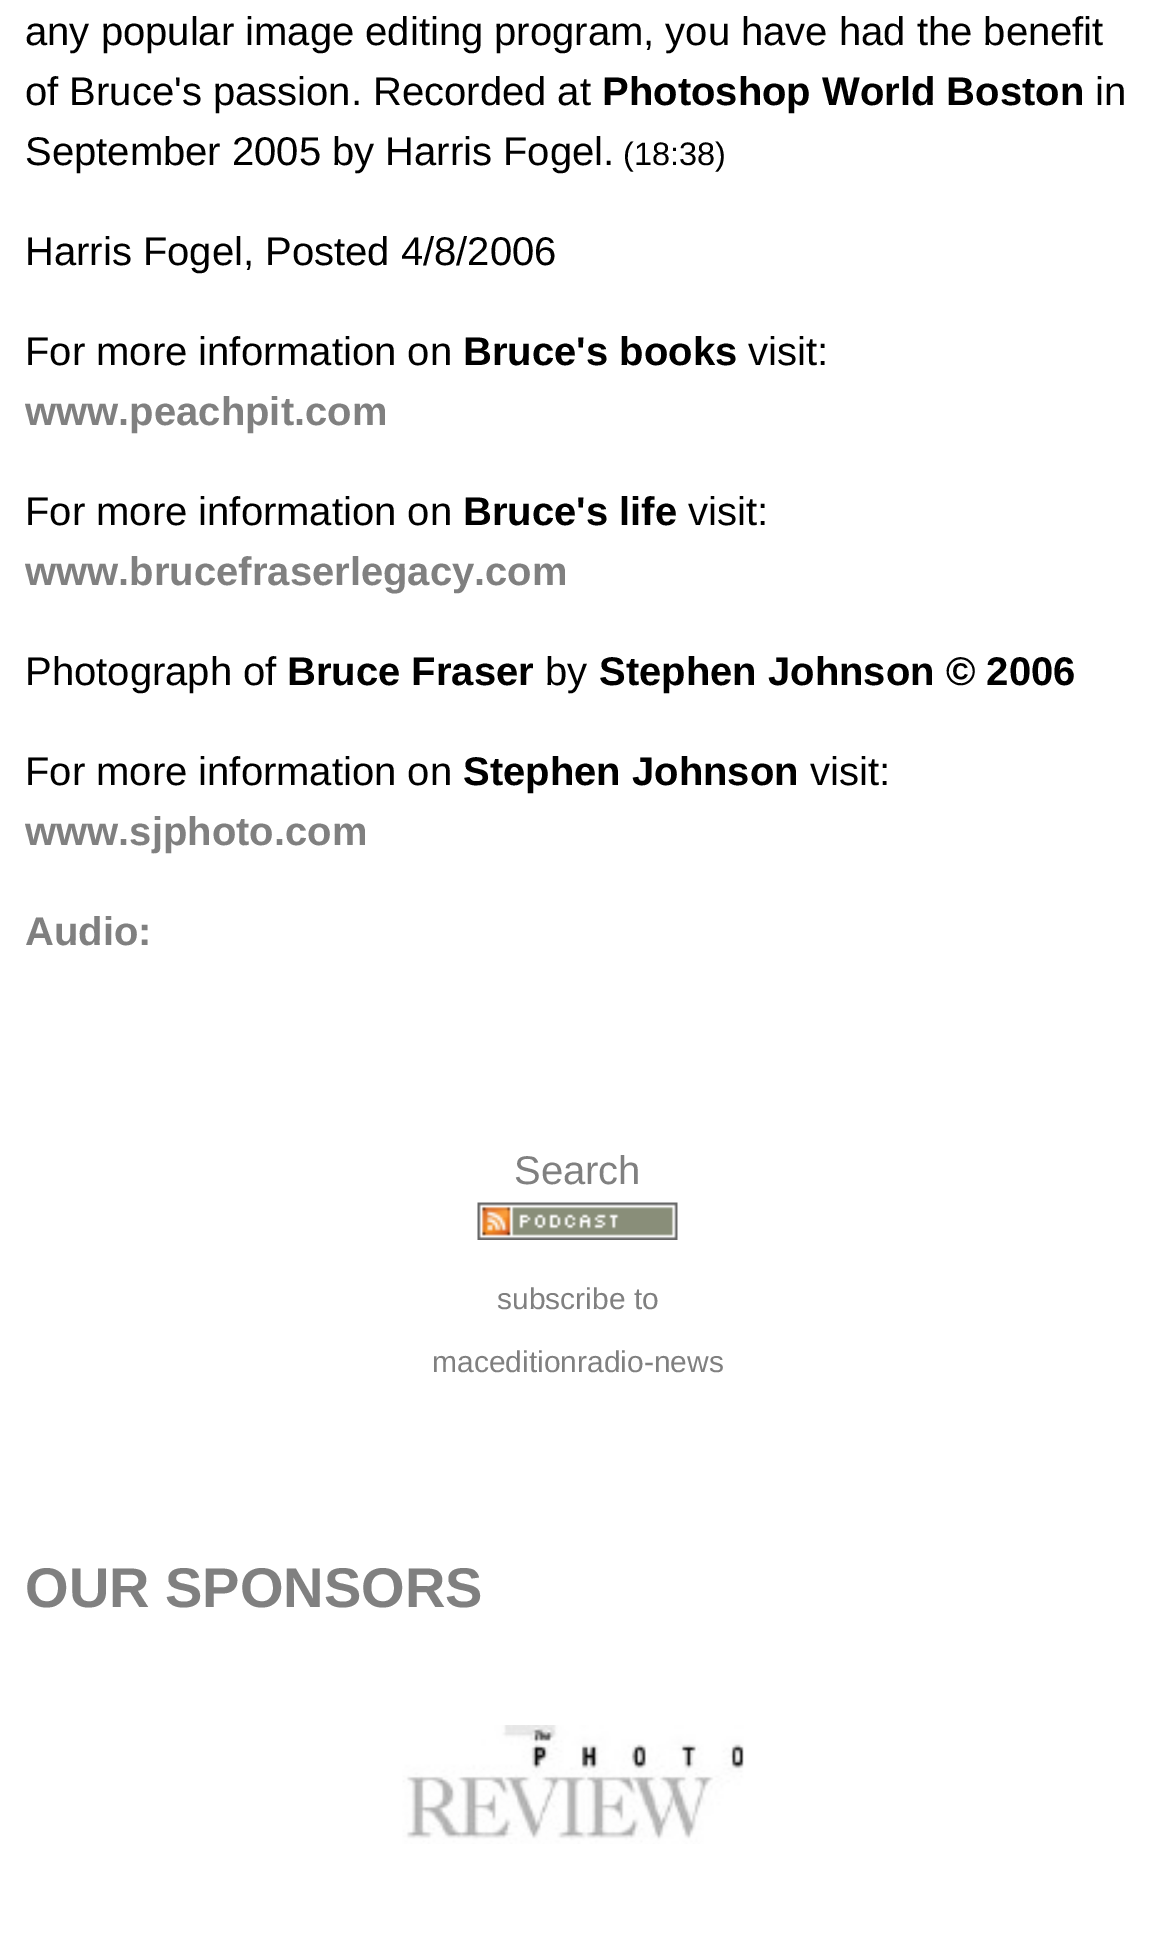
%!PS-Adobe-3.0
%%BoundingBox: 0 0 1153 1935
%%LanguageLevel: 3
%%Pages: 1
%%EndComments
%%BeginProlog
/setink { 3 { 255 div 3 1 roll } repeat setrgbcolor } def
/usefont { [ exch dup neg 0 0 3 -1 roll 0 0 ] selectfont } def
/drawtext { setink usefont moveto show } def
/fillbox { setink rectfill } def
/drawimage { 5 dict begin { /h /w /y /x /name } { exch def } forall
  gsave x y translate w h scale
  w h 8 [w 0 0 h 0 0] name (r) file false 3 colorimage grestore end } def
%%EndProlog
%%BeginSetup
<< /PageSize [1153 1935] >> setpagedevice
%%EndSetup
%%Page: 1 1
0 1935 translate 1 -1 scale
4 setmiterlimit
0 0 1153 1935 255 255 255 fillbox
(any popular image editing program, you have had the benefit) 25 45 /LiberationSans-Regular 40 0 0 0 drawtext
(of Bruce's passion. Recorded at) 25 105 /LiberationSans-Regular 40 0 0 0 drawtext
(Photoshop World Boston) 602 105 /LiberationSans-Bold 40 0 0 0 drawtext
(in) 1095 105 /LiberationSans-Regular 40 0 0 0 drawtext
(September 2005 by Harris Fogel.) 25 165 /LiberationSans-Regular 40 0 0 0 drawtext
(\(18:38\)) 623 165 /LiberationSans-Regular 32.5 0 0 0 drawtext
(Harris Fogel, Posted 4/8/2006) 25 265 /LiberationSans-Regular 40 0 0 0 drawtext
(For more information on) 25 365 /LiberationSans-Regular 40 0 0 0 drawtext
(Bruce's books) 463 365 /LiberationSans-Bold 40 0 0 0 drawtext
(visit:) 748 365 /LiberationSans-Regular 40 0 0 0 drawtext
(www.peachpit.com) 25 425 /LiberationSans-Bold 40 128 128 128 drawtext
(For more information on) 25 525 /LiberationSans-Regular 40 0 0 0 drawtext
(Bruce's life) 463 525 /LiberationSans-Bold 40 0 0 0 drawtext
(visit:) 688 525 /LiberationSans-Regular 40 0 0 0 drawtext
(www.brucefraserlegacy.com) 25 585 /LiberationSans-Bold 40 128 128 128 drawtext
(Photograph of) 25 685 /LiberationSans-Regular 40 0 0 0 drawtext
(Bruce Fraser) 287 685 /LiberationSans-Bold 40 0 0 0 drawtext
(by) 545 685 /LiberationSans-Regular 40 0 0 0 drawtext
(Stephen Johnson © 2006) 599 685 /LiberationSans-Bold 40 0 0 0 drawtext
(For more information on) 25 785 /LiberationSans-Regular 40 0 0 0 drawtext
(Stephen Johnson) 463 785 /LiberationSans-Bold 40 0 0 0 drawtext
(visit:) 810 785 /LiberationSans-Regular 40 0 0 0 drawtext
(www.sjphoto.com) 25 845 /LiberationSans-Bold 40 128 128 128 drawtext
(Audio:) 25 945 /LiberationSans-Bold 40 128 128 128 drawtext
(Search) 514 1184 /LiberationSans-Regular 40 128 128 128 drawtext
(assets/img1.rgb) 477 1202 201 38 drawimage
(subscribe to) 497 1309 /LiberationSans-Regular 30 128 128 128 drawtext
(maceditionradio-news) 432 1372 /LiberationSans-Regular 30 128 128 128 drawtext
(OUR SPONSORS) 25 1607 /LiberationSans-Bold 56 128 128 128 drawtext
(assets/img2.rgb) 402 1725 342 119 drawimage
showpage
%%EOF
